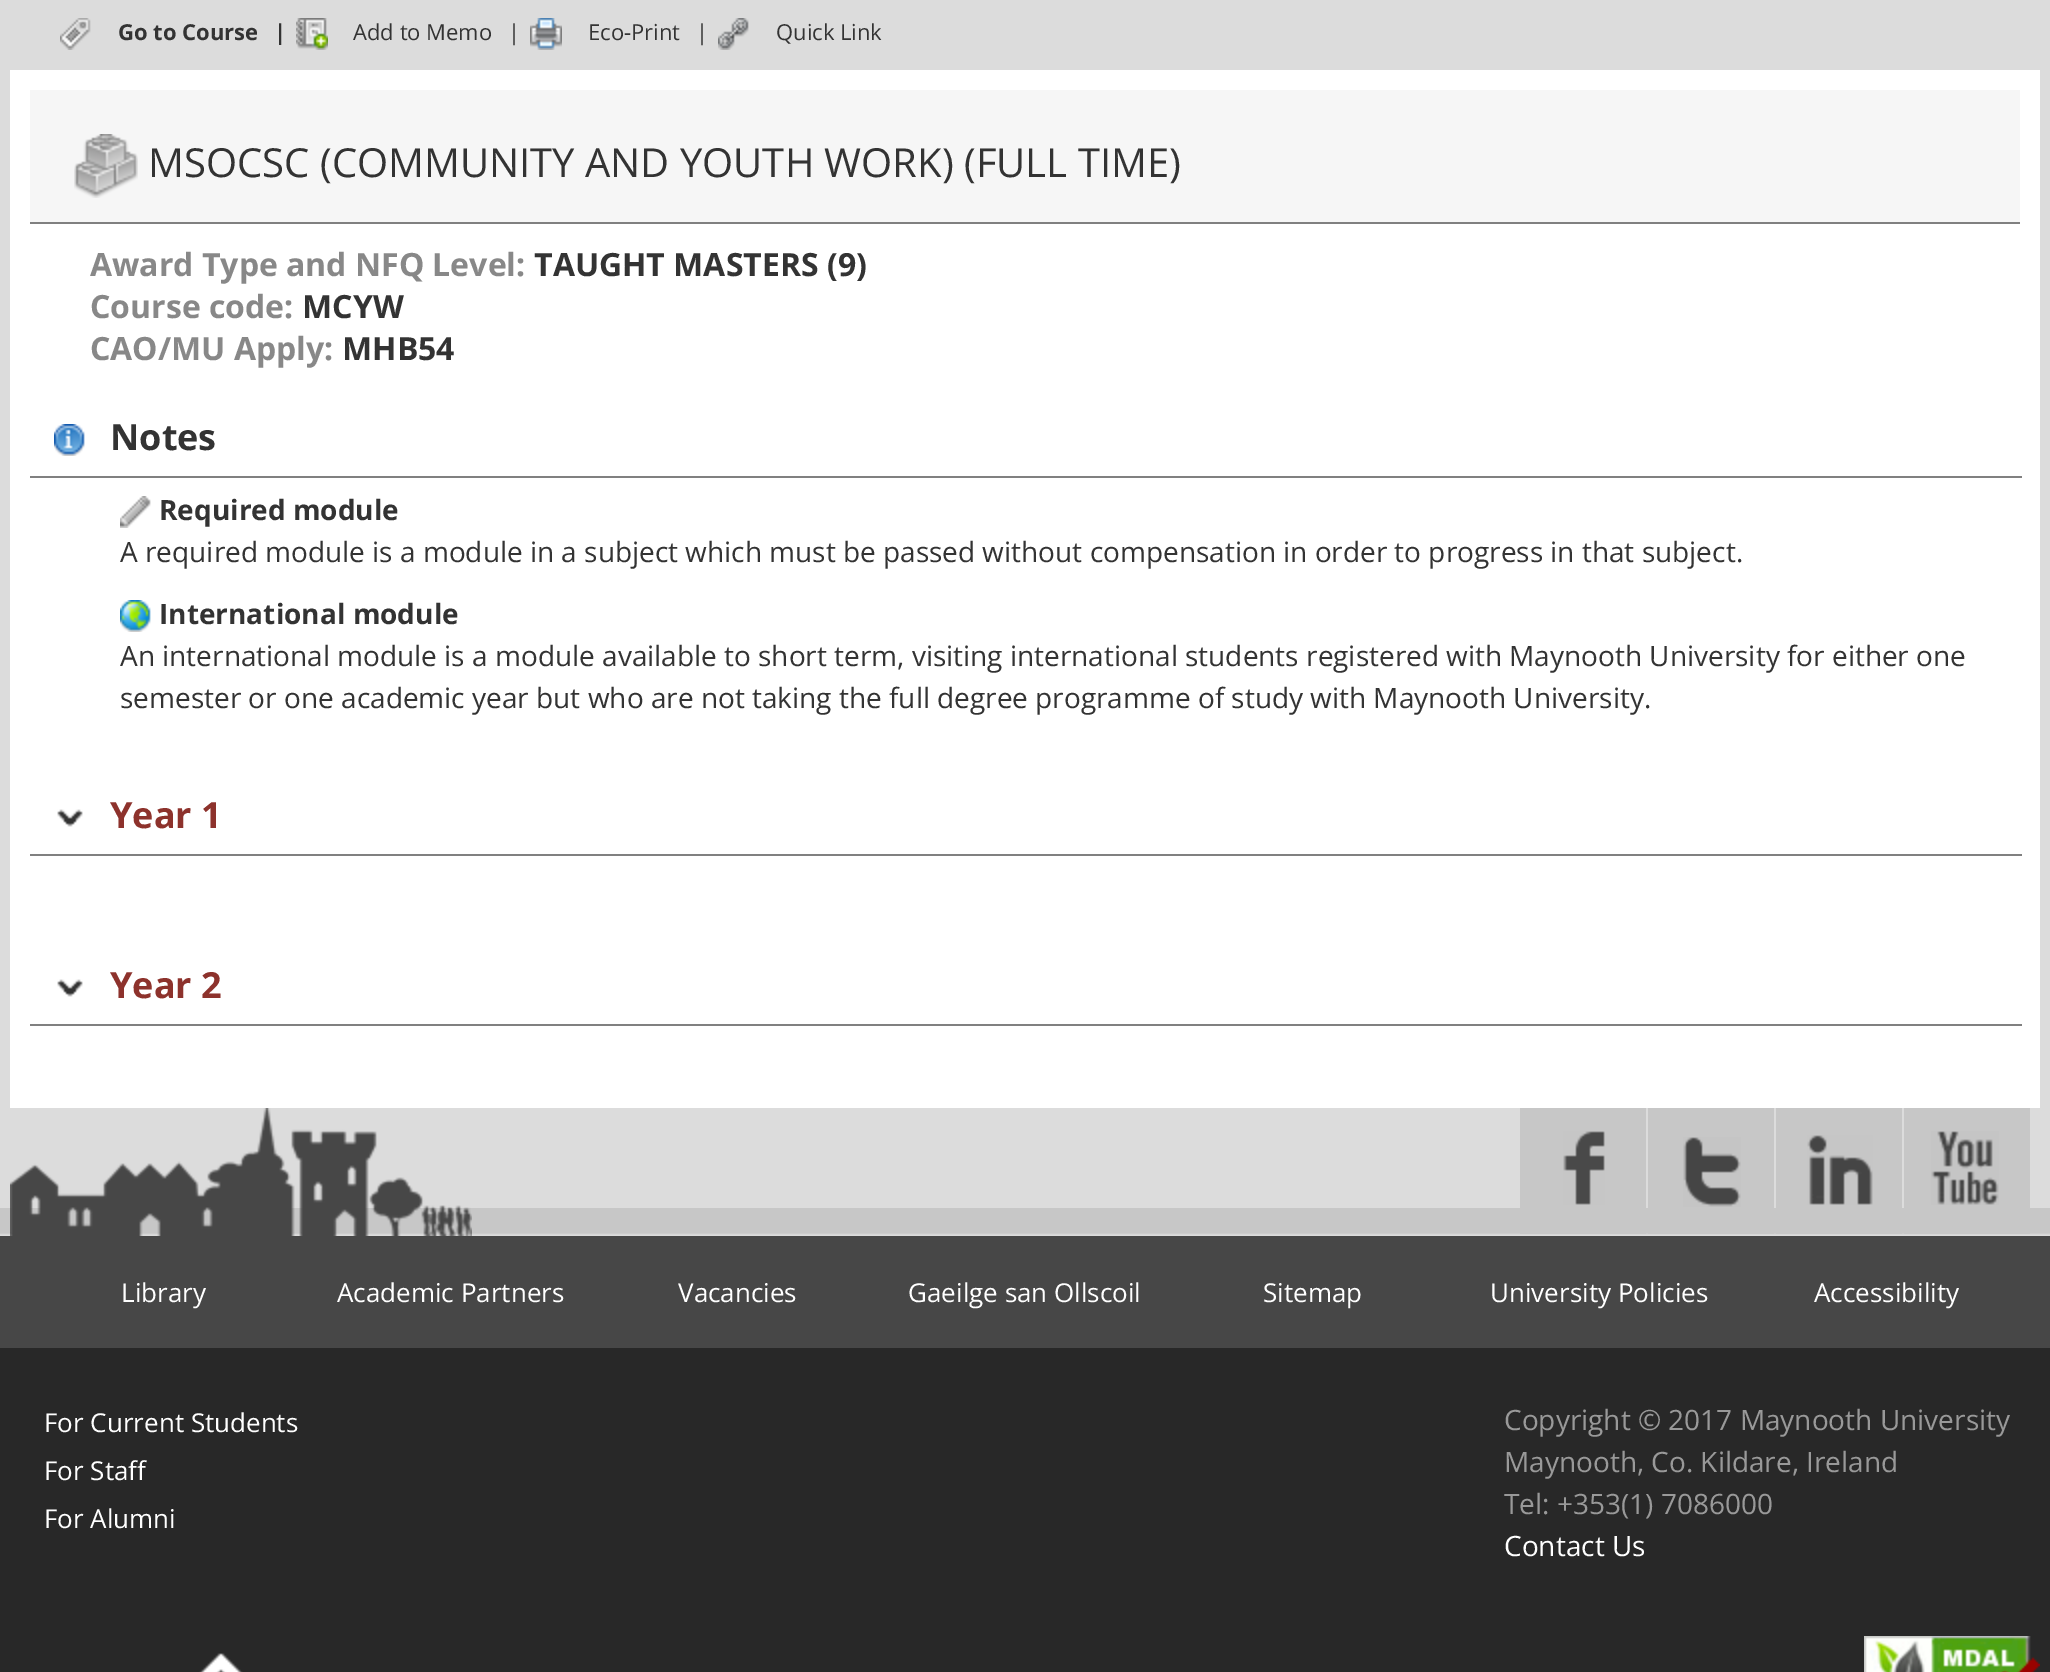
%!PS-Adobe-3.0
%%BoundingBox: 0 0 2050 1672
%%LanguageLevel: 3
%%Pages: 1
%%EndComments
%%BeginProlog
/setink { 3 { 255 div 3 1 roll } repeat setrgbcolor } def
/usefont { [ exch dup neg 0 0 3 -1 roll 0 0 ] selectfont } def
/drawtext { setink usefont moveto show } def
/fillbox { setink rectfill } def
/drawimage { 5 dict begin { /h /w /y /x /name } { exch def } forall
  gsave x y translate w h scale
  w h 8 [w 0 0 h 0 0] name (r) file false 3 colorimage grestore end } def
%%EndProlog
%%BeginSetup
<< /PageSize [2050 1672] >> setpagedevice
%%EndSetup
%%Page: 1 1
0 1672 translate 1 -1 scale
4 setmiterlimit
0 0 2050 1672 40 40 40 fillbox
0 0 2050 1236 220 220 220 fillbox
(assets/img1.rgb) 60 18 31 32 drawimage
(Go to Course) 118 40 /OpenSans-Bold 22 51 51 51 drawtext
(|) 274 40 /OpenSans-Bold 22 51 51 51 drawtext
(assets/img2.rgb) 296 18 32 32 drawimage
(Add to Memo) 353 40 /OpenSans-Regular 22 51 51 51 drawtext
(|) 508 40 /OpenSans-Regular 22 51 51 51 drawtext
(assets/img3.rgb) 530 18 32 32 drawimage
(Eco-Print) 588 40 /OpenSans-Regular 22 51 51 51 drawtext
(|) 696 40 /OpenSans-Regular 22 51 51 51 drawtext
(assets/img4.rgb) 718 18 31 32 drawimage
(Quick Link) 776 40 /OpenSans-Regular 22 51 51 51 drawtext
10 70 2030 1038 255 255 255 fillbox
30 90 1990 132 246 246 246 fillbox
30 222 1990 2 128 128 128 fillbox
(assets/img5.rgb) 74 134 64 64 drawimage
(MSOCSC \(COMMUNITY AND YOUTH WORK\) \(FULL TIME\)) 148 177 /OpenSans-Regular 40 51 51 51 drawtext
(Award Type and NFQ Level:) 90 276 /OpenSans-Bold 32 136 136 136 drawtext
(TAUGHT MASTERS \(9\)) 534 276 /OpenSans-Bold 32 51 51 51 drawtext
(Course code:) 90 318 /OpenSans-Bold 32 136 136 136 drawtext
(MCYW) 302 318 /OpenSans-Bold 32 51 51 51 drawtext
(CAO/MU Apply:) 90 360 /OpenSans-Bold 32 136 136 136 drawtext
(MHB54) 342 360 /OpenSans-Bold 32 51 51 51 drawtext
(assets/img6.rgb) 54 424 31 32 drawimage
30 476 1992 2 128 128 128 fillbox
(Notes) 110 450 /OpenSans-Bold 36 51 51 51 drawtext
(assets/img7.rgb) 120 496 31 32 drawimage
(Required module) 159 520 /OpenSans-Bold 28 51 51 51 drawtext
(A required module is a module in a subject which must be passed without compensation in order to progress in that subject.) 120 562 /OpenSans-Regular 28 51 51 51 drawtext
(assets/img8.rgb) 120 600 31 32 drawimage
(International module) 159 624 /OpenSans-Bold 28 51 51 51 drawtext
(An international module is a module available to short term, visiting international students registered with Maynooth University for either one) 120 666 /OpenSans-Regular 28 51 51 51 drawtext
(semester or one academic year but who are not taking the full degree programme of study with Maynooth University.) 120 708 /OpenSans-Regular 28 51 51 51 drawtext
(assets/img9.rgb) 57 809 26 18 drawimage
30 854 1992 2 128 128 128 fillbox
(Year 1) 110 828 /OpenSans-Bold 36 141 50 44 drawtext
(assets/img9.rgb) 57 979 26 18 drawimage
30 1024 1992 2 128 128 128 fillbox
(Year 2) 110 998 /OpenSans-Bold 36 141 50 44 drawtext
(assets/img10.rgb) 0 1208 2050 27 drawimage
(assets/img11.rgb) 10 1108 462 128 drawimage
1520 1108 126 126 199 199 199 fillbox
(assets/img12.rgb) 1563 1131 42 74 drawimage
1648 1108 126 126 199 199 199 fillbox
(assets/img13.rgb) 1683 1137 58 70 drawimage
1776 1108 126 126 199 199 199 fillbox
(assets/img14.rgb) 1807 1135 66 70 drawimage
1904 1108 126 126 199 199 199 fillbox
(assets/img15.rgb) 1931 1131 68 74 drawimage
0 1236 2050 112 71 71 71 fillbox
(Library) 121 1302 /OpenSans-Regular 26 255 255 255 drawtext
(Academic Partners) 337 1302 /OpenSans-Regular 26 255 255 255 drawtext
(Vacancies) 678 1302 /OpenSans-Regular 26 255 255 255 drawtext
(Gaeilge san Ollscoil) 908 1302 /OpenSans-Regular 26 255 255 255 drawtext
(Sitemap) 1263 1302 /OpenSans-Regular 26 255 255 255 drawtext
(University Policies) 1490 1302 /OpenSans-Regular 26 255 255 255 drawtext
(Accessibility) 1814 1302 /OpenSans-Regular 26 255 255 255 drawtext
(For Current Students) 44 1432 /OpenSans-Regular 26 255 255 255 drawtext
(For Staff) 44 1480 /OpenSans-Regular 26 255 255 255 drawtext
(For Alumni) 44 1528 /OpenSans-Regular 26 255 255 255 drawtext
(Copyright © 2017 Maynooth University) 1504 1430 /OpenSans-Regular 28 153 153 153 drawtext
(Maynooth, Co. Kildare, Ireland) 1504 1472 /OpenSans-Regular 28 153 153 153 drawtext
(Tel: +353\(1\) 7086000) 1504 1514 /OpenSans-Regular 28 153 153 153 drawtext
(Contact Us) 1504 1556 /OpenSans-Regular 28 255 255 255 drawtext
(assets/img16.rgb) 199 1653 44 19 drawimage
(assets/img17.rgb) 1864 1636 176 36 drawimage
showpage
%%EOF
